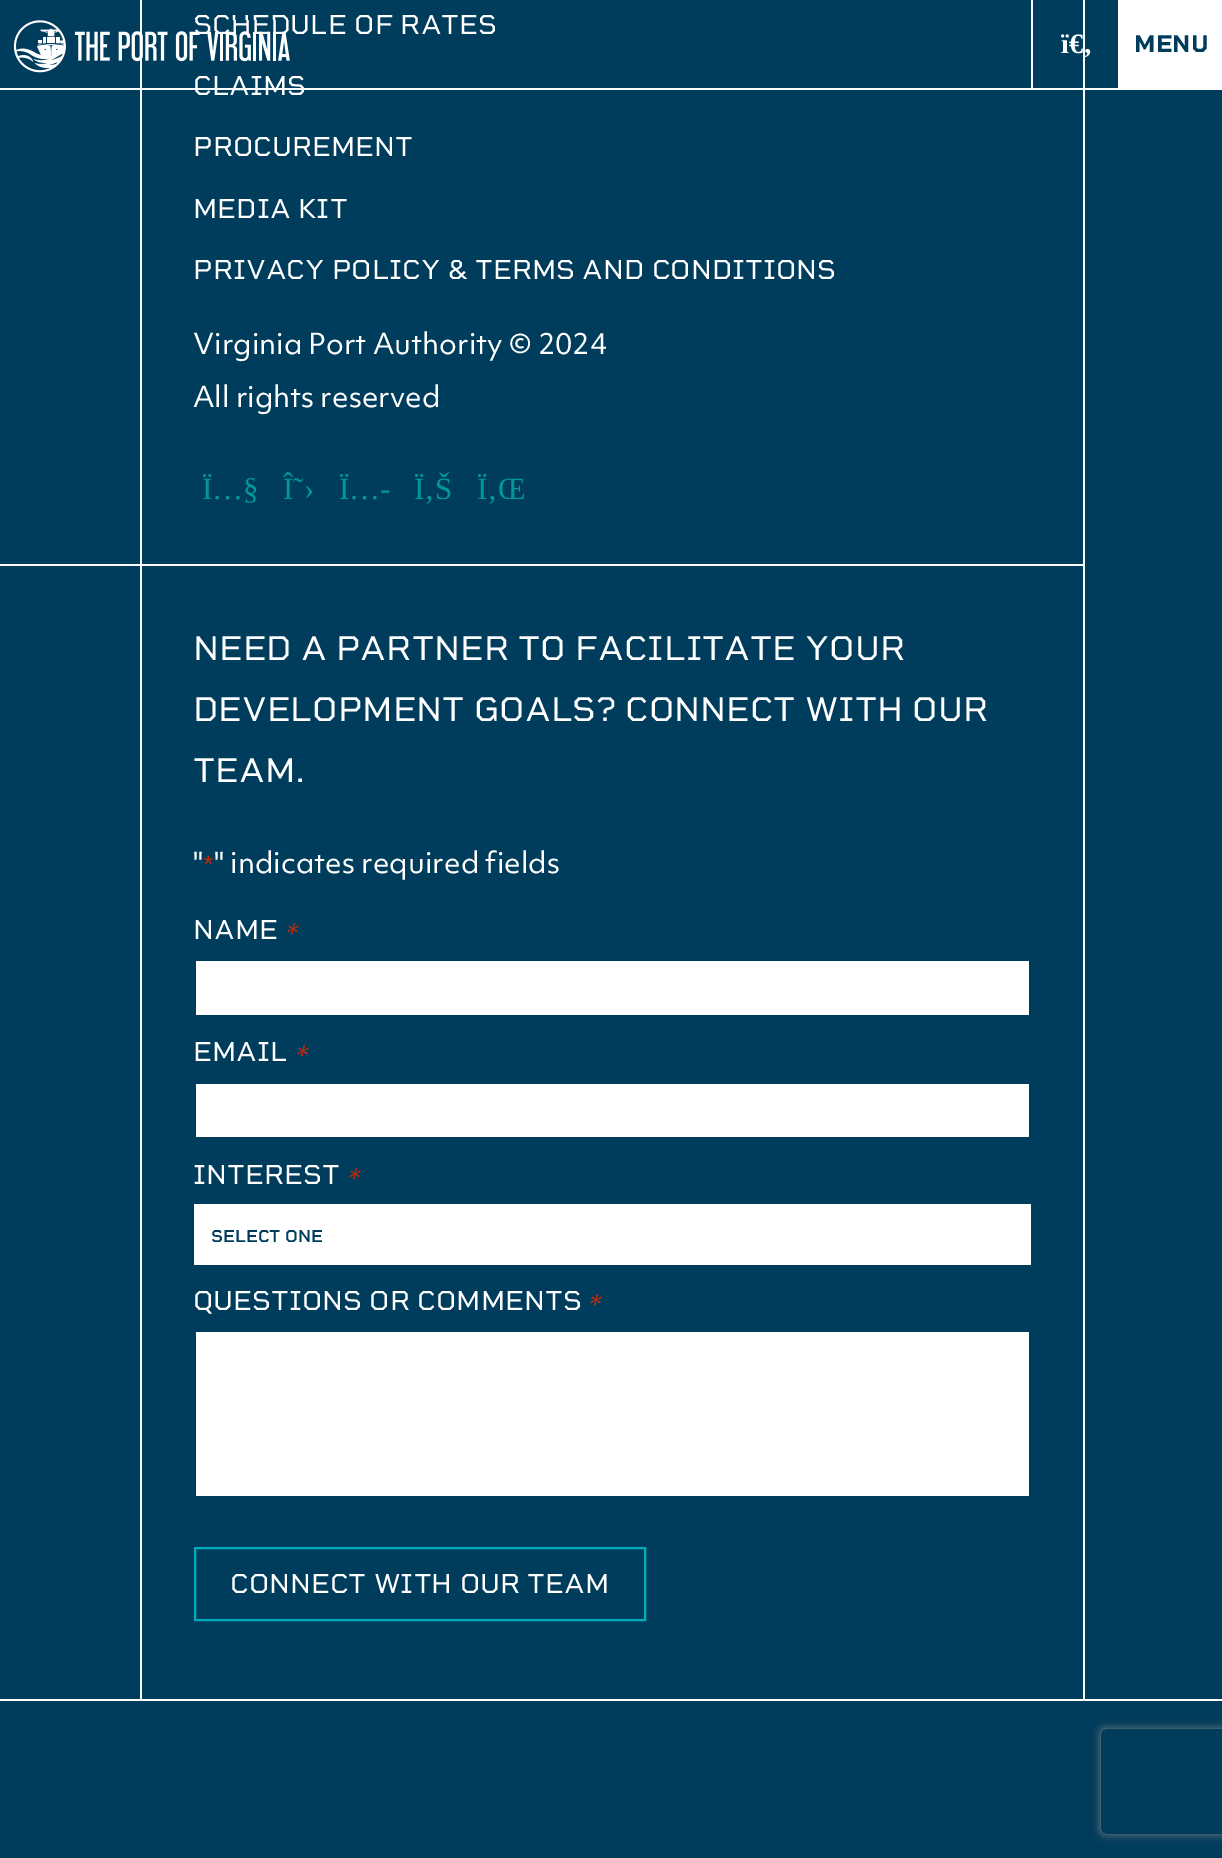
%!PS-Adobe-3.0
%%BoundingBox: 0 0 1222 1858
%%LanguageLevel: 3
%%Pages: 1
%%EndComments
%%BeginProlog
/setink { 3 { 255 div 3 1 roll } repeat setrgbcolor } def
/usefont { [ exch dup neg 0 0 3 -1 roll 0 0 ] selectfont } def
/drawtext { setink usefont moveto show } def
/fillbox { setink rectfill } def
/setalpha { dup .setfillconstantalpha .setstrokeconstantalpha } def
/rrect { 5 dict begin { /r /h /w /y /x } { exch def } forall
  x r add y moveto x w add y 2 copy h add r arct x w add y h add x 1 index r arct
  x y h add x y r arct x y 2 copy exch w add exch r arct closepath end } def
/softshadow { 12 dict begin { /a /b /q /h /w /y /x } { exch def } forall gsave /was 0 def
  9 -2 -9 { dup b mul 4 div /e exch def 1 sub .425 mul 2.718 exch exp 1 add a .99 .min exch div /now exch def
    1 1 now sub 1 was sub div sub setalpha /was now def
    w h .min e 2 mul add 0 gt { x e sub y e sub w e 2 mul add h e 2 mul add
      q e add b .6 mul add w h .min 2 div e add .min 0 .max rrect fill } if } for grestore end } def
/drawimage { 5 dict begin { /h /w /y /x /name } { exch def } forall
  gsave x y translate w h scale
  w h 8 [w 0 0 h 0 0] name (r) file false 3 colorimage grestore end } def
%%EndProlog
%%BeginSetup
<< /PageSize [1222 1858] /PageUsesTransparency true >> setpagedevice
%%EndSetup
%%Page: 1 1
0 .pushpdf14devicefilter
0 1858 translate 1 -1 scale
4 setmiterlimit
0 0 1222 1858 0 60 91 fillbox
0 1699 1222 2 255 255 255 fillbox
1083 0 2 1701 255 255 255 fillbox
140 0 2 1701 255 255 255 fillbox
0 564 1083 2 255 255 255 fillbox
(SCHEDULE OF RATES) 193 34 /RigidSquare-Regular 28 255 255 255 drawtext
(CLAIMS) 193 95 /RigidSquare-Regular 28 255 255 255 drawtext
(PROCUREMENT) 193 156 /RigidSquare-Regular 28 255 255 255 drawtext
(MEDIA KIT) 193 218 /RigidSquare-Regular 28 255 255 255 drawtext
(PRIVACY POLICY & TERMS AND CONDITIONS) 193 279 /RigidSquare-Regular 28 255 255 255 drawtext
(Virginia Port Authority © 2024) 193 354 /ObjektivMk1-Regular 28 255 255 255 drawtext
(All rights reserved) 193 407 /ObjektivMk1-Regular 28 255 255 255 drawtext
(Ï…§) 202 499 /LiberationSerif-Regular 31 0 153 153 drawtext
(Î˜›) 283 499 /LiberationSerif-Regular 31 0 153 153 drawtext
(Ï…-) 339 499 /LiberationSerif-Regular 31 0 153 153 drawtext
(Ï‚Š) 414 499 /LiberationSerif-Regular 31 0 153 153 drawtext
(Ï‚Œ) 477 499 /LiberationSerif-Regular 31 0 153 153 drawtext
(NEED A PARTNER TO FACILITATE YOUR) 193 660 /RigidSquare-Regular 35 255 255 255 drawtext
(DEVELOPMENT GOALS? CONNECT WITH OUR) 193 721 /RigidSquare-Regular 35 255 255 255 drawtext
(TEAM.) 193 782 /RigidSquare-Regular 35 255 255 255 drawtext
(") 193 873 /ObjektivMk1-Regular 28 255 255 255 drawtext
(*) 203 873 /ObjektivMk1-Regular 23 192 43 10 drawtext
(" indicates required fields) 214 873 /ObjektivMk1-Regular 28 255 255 255 drawtext
(NAME) 193 939 /RigidSquare-Regular 28 255 255 255 drawtext
(*) 284 939 /RigidSquare-Italic 23 192 43 10 drawtext
196 961 833 54 255 255 255 fillbox
(EMAIL) 193 1061 /RigidSquare-Regular 28 255 255 255 drawtext
(*) 294 1061 /RigidSquare-Italic 23 192 43 10 drawtext
196 1084 833 53 255 255 255 fillbox
(INTEREST) 193 1184 /RigidSquare-Regular 28 255 255 255 drawtext
(*) 346 1184 /RigidSquare-Italic 23 192 43 10 drawtext
194 1204 837 61 255 255 255 fillbox
(SELECT ONE) 211 1242 /RigidSquare-SemiBold 17.5 0 60 91 drawtext
(QUESTIONS OR COMMENTS) 193 1310 /RigidSquare-Regular 28 255 255 255 drawtext
(*) 587 1310 /RigidSquare-Italic 23 192 43 10 drawtext
196 1332 833 164 255 255 255 fillbox
0 173 187 setink
2 setlinewidth
195 1548 450 72 rectstroke
(CONNECT WITH OUR TEAM) 230 1593 /RigidSquare-Regular 28 255 255 255 drawtext
0 88 1222 2 255 255 255 fillbox
(assets/img1.rgb) 13 20 277 53 drawimage
1031 0 2 88 255 255 255 fillbox
(ï€‚) 1061 53 /LiberationSerif-Bold 28 255 255 255 drawtext
1118 0 104 88 255 255 255 fillbox
(MENU) 1134 52 /RigidSquare-Bold 24.5 0 60 91 drawtext
gsave
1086 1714 moveto 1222 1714 lineto 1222 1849 lineto 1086 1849 lineto closepath 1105 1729 moveto 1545 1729 lineto 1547 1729 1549 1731 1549 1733 curveto 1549 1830 lineto 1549 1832 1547 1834 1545 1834 curveto 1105 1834 lineto 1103 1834 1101 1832 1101 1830 curveto 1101 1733 lineto 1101 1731 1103 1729 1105 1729 curveto closepath eoclip newpath
128 128 128 setink
1101 1729 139 105 4 4.5 1 softshadow
grestore
.poppdf14devicefilter showpage
%%EOF
